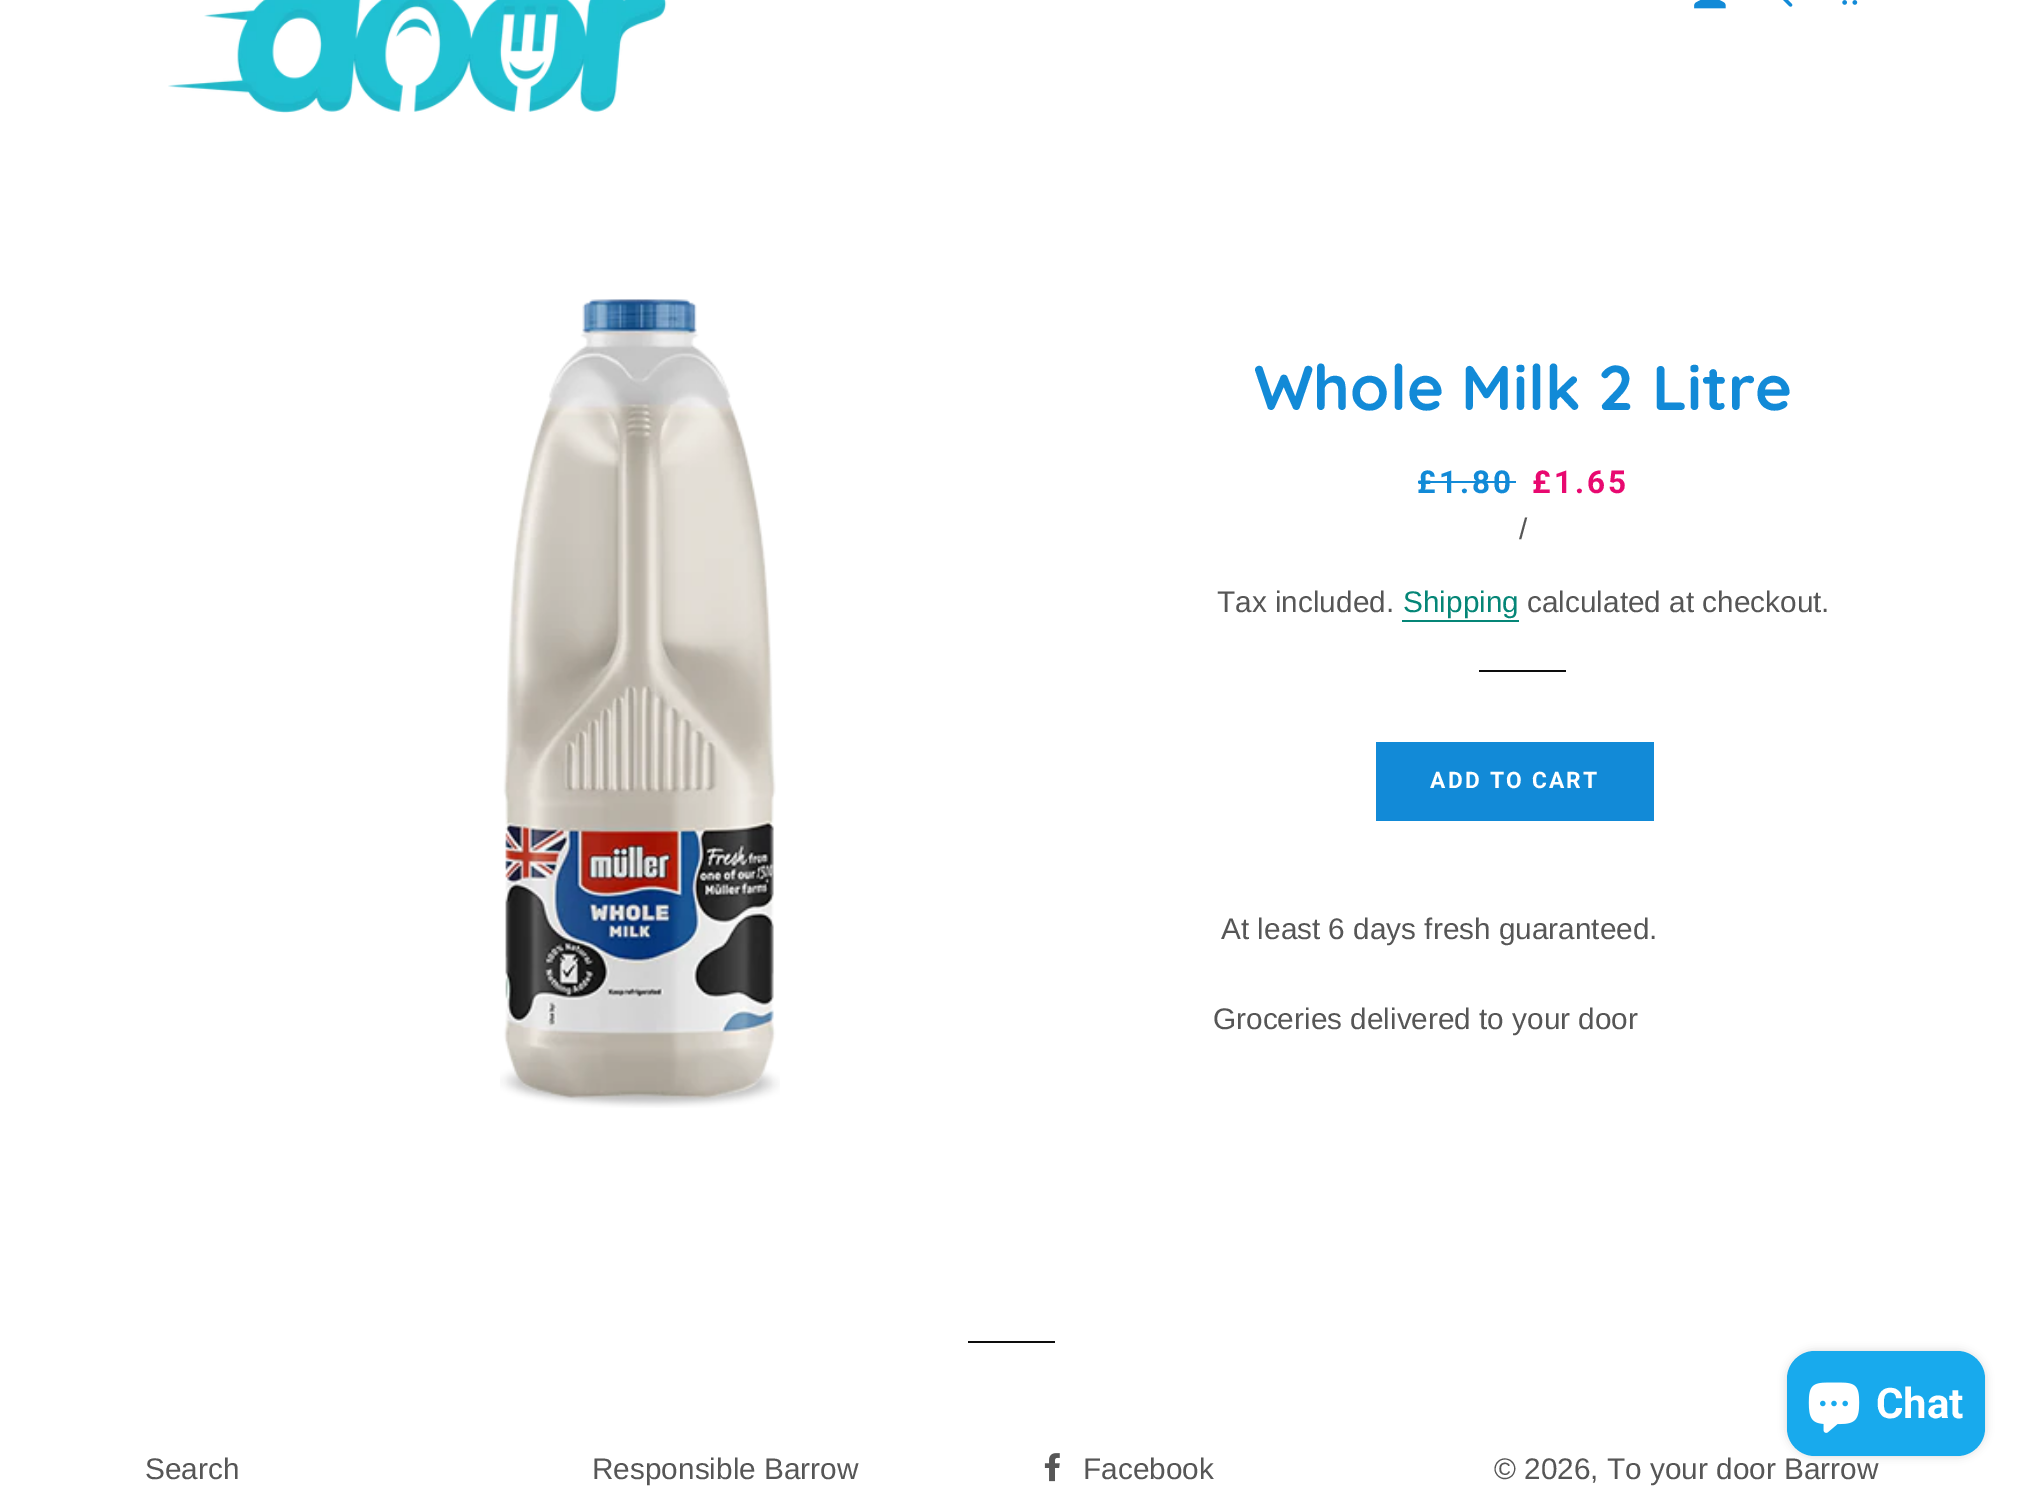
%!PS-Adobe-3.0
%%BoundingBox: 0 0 2022 1492
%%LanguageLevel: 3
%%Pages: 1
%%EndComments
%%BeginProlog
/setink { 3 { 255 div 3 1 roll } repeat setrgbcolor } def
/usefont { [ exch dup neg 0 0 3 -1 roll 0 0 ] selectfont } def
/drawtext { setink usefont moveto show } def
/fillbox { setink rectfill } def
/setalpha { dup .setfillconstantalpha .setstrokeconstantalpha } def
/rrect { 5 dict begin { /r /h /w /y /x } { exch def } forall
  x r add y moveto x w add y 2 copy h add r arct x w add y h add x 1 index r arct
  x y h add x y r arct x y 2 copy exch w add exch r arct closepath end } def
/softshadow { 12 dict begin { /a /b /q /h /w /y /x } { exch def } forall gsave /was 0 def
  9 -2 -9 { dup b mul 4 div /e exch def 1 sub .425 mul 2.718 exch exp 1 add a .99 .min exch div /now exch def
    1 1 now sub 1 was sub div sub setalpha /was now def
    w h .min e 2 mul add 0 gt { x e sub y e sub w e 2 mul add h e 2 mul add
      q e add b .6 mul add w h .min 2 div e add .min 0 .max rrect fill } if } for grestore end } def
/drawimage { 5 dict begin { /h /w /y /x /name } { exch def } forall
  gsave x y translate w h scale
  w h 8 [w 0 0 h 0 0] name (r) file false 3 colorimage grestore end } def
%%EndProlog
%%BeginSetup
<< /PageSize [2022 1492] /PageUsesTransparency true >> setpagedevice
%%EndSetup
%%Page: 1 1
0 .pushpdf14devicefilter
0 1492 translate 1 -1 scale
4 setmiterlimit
0 0 2022 1492 255 255 255 fillbox
(assets/img1.rgb) 168 0 499 113 drawimage
(assets/img2.rgb) 1694 0 32 9 drawimage
(assets/img3.rgb) 1783 0 10 7 drawimage
(assets/img4.rgb) 1842 0 16 5 drawimage
(assets/img5.rgb) 500 299 280 809 drawimage
(Whole Milk 2 Litre) 1254 410 /Quicksand-Bold 63 18 138 215 drawtext
/Roboto-Bold 31.5 usefont
1417 493 moveto 3 0 (£1.80) ashow
1418 481 98 2 18 138 215 fillbox
232 9 112 setink
1532 493 moveto 3 0 (£1.65) ashow
(/) 1519 539 /LiberationSans-Regular 29.75 86 86 86 drawtext
(Tax included.) 1217 612 /LiberationSans-Regular 29.75 86 86 86 drawtext
(Shipping) 1403 612 /LiberationSans-Regular 29.75 5 134 119 drawtext
1402 620 117 2 5 134 119 fillbox
(calculated at checkout.) 1527 612 /LiberationSans-Regular 29.75 86 86 86 drawtext
1479 670 87 2 13 13 13 fillbox
1376 742 278 79 18 138 215 fillbox
/Roboto-Bold 22.75 usefont
255 255 255 setink
1430 788 moveto 2.25 0 (ADD TO CART) ashow
(At least 6 days fresh guaranteed.) 1221 939 /LiberationSans-Regular 29.75 86 86 86 drawtext
(Groceries delivered to your door) 1213 1029 /LiberationSans-Regular 29.75 86 86 86 drawtext
968 1341 87 2 13 13 13 fillbox
(Search) 145 1479 /LiberationSans-Regular 29.75 86 86 86 drawtext
(Responsible Barrow) 592 1479 /LiberationSans-Regular 29.75 86 86 86 drawtext
(assets/img6.rgb) 1044 1453 16 29 drawimage
(Facebook) 1083 1479 /LiberationSans-Regular 29.75 86 86 86 drawtext
(© 2026, To your door Barrow) 1494 1479 /LiberationSans-Regular 29.75 86 86 86 drawtext
0 0 0 setink
1787 1351 198 105 28 4.5 0.15 softshadow
24 170 237 setink
1787 1351 198 105 28 rrect fill
(assets/img7.rgb) 1808 1382 52 51 drawimage
(Chat) 1876 1418 /Roboto-Bold 42 255 255 255 drawtext
.poppdf14devicefilter showpage
%%EOF
